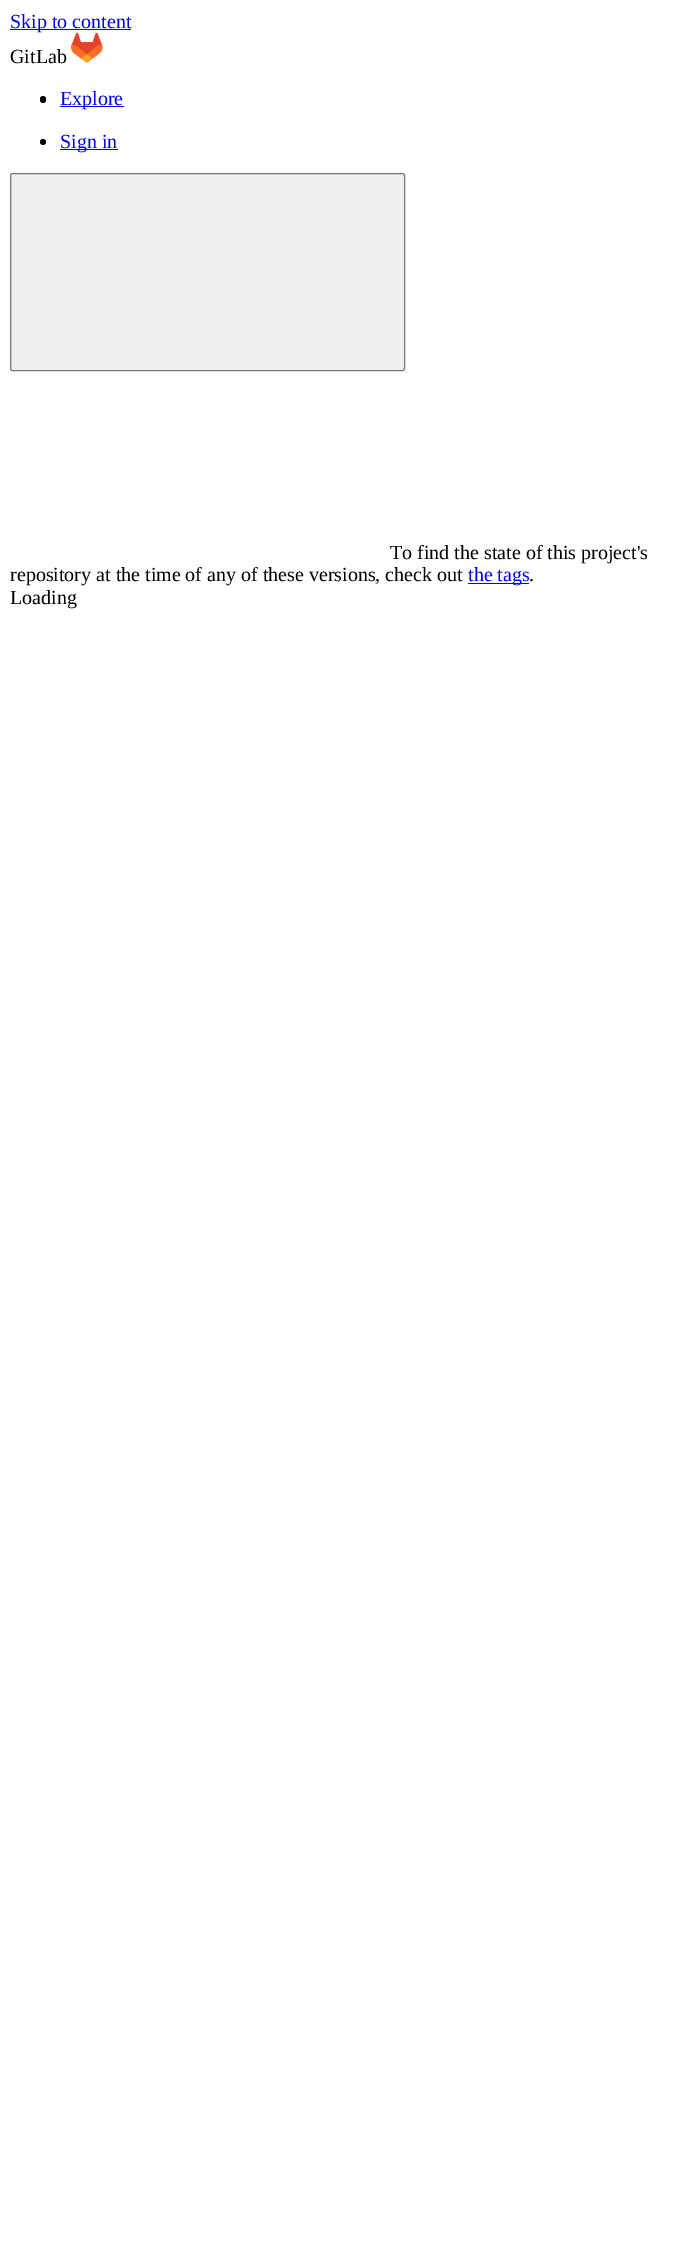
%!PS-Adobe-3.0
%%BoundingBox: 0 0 679 2249
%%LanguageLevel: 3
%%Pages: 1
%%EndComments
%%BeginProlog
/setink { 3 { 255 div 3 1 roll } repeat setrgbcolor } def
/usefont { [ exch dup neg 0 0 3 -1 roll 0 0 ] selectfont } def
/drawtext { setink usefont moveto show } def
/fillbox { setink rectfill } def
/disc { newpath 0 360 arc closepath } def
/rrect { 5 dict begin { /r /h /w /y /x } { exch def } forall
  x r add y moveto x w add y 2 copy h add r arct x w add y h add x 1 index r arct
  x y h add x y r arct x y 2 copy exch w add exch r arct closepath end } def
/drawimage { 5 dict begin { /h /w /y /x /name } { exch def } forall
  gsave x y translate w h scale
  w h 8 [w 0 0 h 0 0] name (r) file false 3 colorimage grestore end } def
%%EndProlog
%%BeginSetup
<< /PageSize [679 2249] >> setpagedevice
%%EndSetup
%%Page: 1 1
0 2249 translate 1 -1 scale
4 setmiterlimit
0 0 679 2249 255 255 255 fillbox
10 29 121 1 0 0 238 fillbox
(Skip to content) 10 28 /LiberationSerif-Regular 20 0 0 238 drawtext
(GitLab) 10 63 /LiberationSerif-Regular 20 0 0 0 drawtext
(assets/img1.rgb) 71 33 32 30 drawimage
40 96 6 7 3 rrect fill
60 106 64 1 0 0 238 fillbox
(Explore) 60 105 /LiberationSerif-Regular 20 0 0 238 drawtext
0 0 0 setink
43 142 3 disc fill
60 149 58 1 0 0 238 fillbox
(Sign in) 60 148 /LiberationSerif-Regular 20 0 0 238 drawtext
239 239 239 setink
10.5 173.5 394 197 2 rrect gsave fill grestore
118 118 118 setink
stroke
(To find the state of this project's) 390 559 /LiberationSerif-Regular 20 0 0 0 drawtext
(repository at the time of any of these versions, check out) 10 581 /LiberationSerif-Regular 20 0 0 0 drawtext
468 583 61 1 0 0 238 fillbox
(the tags) 468 581 /LiberationSerif-Regular 20 0 0 238 drawtext
(.) 529 581 /LiberationSerif-Regular 20 0 0 0 drawtext
(Loading) 10 604 /LiberationSerif-Regular 20 0 0 0 drawtext
showpage
%%EOF
